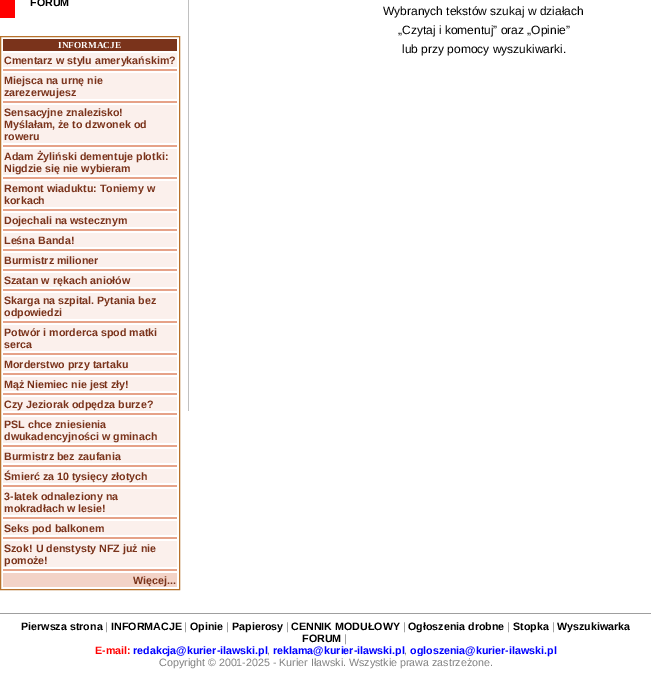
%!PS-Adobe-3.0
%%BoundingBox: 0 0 651 680
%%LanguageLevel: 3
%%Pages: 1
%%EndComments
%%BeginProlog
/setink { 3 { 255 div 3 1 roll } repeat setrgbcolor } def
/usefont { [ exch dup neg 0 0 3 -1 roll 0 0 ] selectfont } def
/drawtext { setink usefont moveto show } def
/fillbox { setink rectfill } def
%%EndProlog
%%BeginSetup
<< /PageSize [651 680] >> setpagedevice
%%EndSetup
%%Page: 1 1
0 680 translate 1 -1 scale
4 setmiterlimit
0 0 651 680 255 255 255 fillbox
0 0 15 18 255 0 0 fillbox
(FORUM) 30 6 /LiberationSans-Bold 10.7 0 0 0 drawtext
183 113 43 setink
0.5 36.5 179 553 rectstroke
3 39 174 12 122 51 27 fillbox
(INFORMACJE) 58 48 /LiberationSerif-Bold 9.25 255 255 255 drawtext
3 53 174 14 251 240 236 fillbox
(Cmentarz w stylu amerykańskim?) 4 64 /LiberationSans-Bold 10.7 122 51 27 drawtext
3 69 174 2 230 162 136 fillbox
3 73 174 26 251 240 236 fillbox
(Miejsca na urnę nie) 4 84 /LiberationSans-Bold 10.7 122 51 27 drawtext
(zarezerwujesz) 4 96 /LiberationSans-Bold 10.7 122 51 27 drawtext
3 101 174 2 230 162 136 fillbox
3 105 174 38 251 240 236 fillbox
(Sensacyjne znalezisko!) 4 116 /LiberationSans-Bold 10.7 122 51 27 drawtext
(Myślałam, że to dzwonek od) 4 128 /LiberationSans-Bold 10.7 122 51 27 drawtext
(roweru) 4 140 /LiberationSans-Bold 10.7 122 51 27 drawtext
3 145 174 2 230 162 136 fillbox
3 149 174 26 251 240 236 fillbox
(Adam Żyliński dementuje plotki:) 4 160 /LiberationSans-Bold 10.7 122 51 27 drawtext
(Nigdzie się nie wybieram) 4 172 /LiberationSans-Bold 10.7 122 51 27 drawtext
3 177 174 2 230 162 136 fillbox
3 181 174 26 251 240 236 fillbox
(Remont wiaduktu: Toniemy w) 4 192 /LiberationSans-Bold 10.7 122 51 27 drawtext
(korkach) 4 204 /LiberationSans-Bold 10.7 122 51 27 drawtext
3 209 174 2 230 162 136 fillbox
3 213 174 14 251 240 236 fillbox
(Dojechali na wstecznym) 4 224 /LiberationSans-Bold 10.7 122 51 27 drawtext
3 229 174 2 230 162 136 fillbox
3 233 174 14 251 240 236 fillbox
(Leśna Banda!) 4 244 /LiberationSans-Bold 10.7 122 51 27 drawtext
3 249 174 2 230 162 136 fillbox
3 253 174 14 251 240 236 fillbox
(Burmistrz milioner) 4 264 /LiberationSans-Bold 10.7 122 51 27 drawtext
3 269 174 2 230 162 136 fillbox
3 273 174 14 251 240 236 fillbox
(Szatan w rękach aniołów) 4 284 /LiberationSans-Bold 10.7 122 51 27 drawtext
3 289 174 2 230 162 136 fillbox
3 293 174 26 251 240 236 fillbox
(Skarga na szpital. Pytania bez) 4 304 /LiberationSans-Bold 10.7 122 51 27 drawtext
(odpowiedzi) 4 316 /LiberationSans-Bold 10.7 122 51 27 drawtext
3 321 174 2 230 162 136 fillbox
3 325 174 26 251 240 236 fillbox
(Potwór i morderca spod matki) 4 336 /LiberationSans-Bold 10.7 122 51 27 drawtext
(serca) 4 348 /LiberationSans-Bold 10.7 122 51 27 drawtext
3 353 174 2 230 162 136 fillbox
3 357 174 14 251 240 236 fillbox
(Morderstwo przy tartaku) 4 368 /LiberationSans-Bold 10.7 122 51 27 drawtext
3 373 174 2 230 162 136 fillbox
3 377 174 14 251 240 236 fillbox
(Mąż Niemiec nie jest zły!) 4 388 /LiberationSans-Bold 10.7 122 51 27 drawtext
3 393 174 2 230 162 136 fillbox
3 397 174 14 251 240 236 fillbox
(Czy Jeziorak odpędza burze?) 4 408 /LiberationSans-Bold 10.7 122 51 27 drawtext
3 413 174 2 230 162 136 fillbox
3 417 174 26 251 240 236 fillbox
(PSL chce zniesienia) 4 428 /LiberationSans-Bold 10.7 122 51 27 drawtext
(dwukadencyjności w gminach) 4 440 /LiberationSans-Bold 10.7 122 51 27 drawtext
3 445 174 2 230 162 136 fillbox
3 449 174 14 251 240 236 fillbox
(Burmistrz bez zaufania) 4 460 /LiberationSans-Bold 10.7 122 51 27 drawtext
3 465 174 2 230 162 136 fillbox
3 469 174 14 251 240 236 fillbox
(Śmierć za 10 tysięcy złotych) 4 480 /LiberationSans-Bold 10.7 122 51 27 drawtext
3 485 174 2 230 162 136 fillbox
3 489 174 26 251 240 236 fillbox
(3-latek odnaleziony na) 4 500 /LiberationSans-Bold 10.7 122 51 27 drawtext
(mokradłach w lesie!) 4 512 /LiberationSans-Bold 10.7 122 51 27 drawtext
3 517 174 2 230 162 136 fillbox
3 521 174 14 251 240 236 fillbox
(Seks pod balkonem) 4 532 /LiberationSans-Bold 10.7 122 51 27 drawtext
3 537 174 2 230 162 136 fillbox
3 541 174 26 251 240 236 fillbox
(Szok! U denstysty NFZ już nie) 4 552 /LiberationSans-Bold 10.7 122 51 27 drawtext
(pomoże!) 4 564 /LiberationSans-Bold 10.7 122 51 27 drawtext
3 569 174 2 230 162 136 fillbox
3 573 174 14 243 211 199 fillbox
(Więcej...) 133 584 /LiberationSans-Bold 10.7 122 51 27 drawtext
188 0 1 411 192 192 192 fillbox
(Wybranych tekstów szukaj w działach) 383 15 /LiberationSans-Regular 12 0 0 0 drawtext
(„Czytaj i komentuj” oraz „Opinie”) 398 34 /LiberationSans-Regular 12 0 0 0 drawtext
(lub przy pomocy wyszukiwarki.) 402 53 /LiberationSans-Regular 12 0 0 0 drawtext
0 613 651 1 159 159 159 fillbox
(Pierwsza strona) 21 630 /LiberationSans-Bold 10.7 0 0 0 drawtext
(|) 105 630 /LiberationSans-Regular 10.7 128 128 128 drawtext
(INFORMACJE) 111 630 /LiberationSans-Bold 10.7 0 0 0 drawtext
(|) 184 630 /LiberationSans-Regular 10.7 128 128 128 drawtext
(Opinie) 190 630 /LiberationSans-Bold 10.7 0 0 0 drawtext
(|) 226 630 /LiberationSans-Regular 10.7 128 128 128 drawtext
(Papierosy) 232 630 /LiberationSans-Bold 10.7 0 0 0 drawtext
(|) 286 630 /LiberationSans-Regular 10.7 128 128 128 drawtext
(CENNIK MODUŁOWY) 291 630 /LiberationSans-Bold 10.7 0 0 0 drawtext
(|) 403 630 /LiberationSans-Regular 10.7 128 128 128 drawtext
(Ogłoszenia drobne) 408 630 /LiberationSans-Bold 10.7 0 0 0 drawtext
(|) 507 630 /LiberationSans-Regular 10.7 128 128 128 drawtext
(Stopka) 513 630 /LiberationSans-Bold 10.7 0 0 0 drawtext
(|) 552 630 /LiberationSans-Regular 10.7 128 128 128 drawtext
(Wyszukiwarka) 557 630 /LiberationSans-Bold 10.7 0 0 0 drawtext
(FORUM) 302 642 /LiberationSans-Bold 10.7 0 0 0 drawtext
(|) 344 642 /LiberationSans-Regular 10.7 128 128 128 drawtext
(E-mail:) 95 654 /LiberationSans-Bold 10.7 255 0 0 drawtext
(redakcja@kurier-ilawski.pl) 133 654 /LiberationSans-Bold 10.7 0 0 255 drawtext
(,) 267 654 /LiberationSans-Regular 10.7 128 128 128 drawtext
(reklama@kurier-ilawski.pl) 273 654 /LiberationSans-Bold 10.7 0 0 255 drawtext
(,) 404 654 /LiberationSans-Regular 10.7 128 128 128 drawtext
(ogloszenia@kurier-ilawski.pl) 410 654 /LiberationSans-Bold 10.7 0 0 255 drawtext
395 656 27 1 255 255 255 fillbox
(Copyright © 2001-2025 - Kurier Iławski. Wszystkie prawa zastrzeżone.) 159 666 /LiberationSans-Regular 10.7 128 128 128 drawtext
showpage
%%EOF
